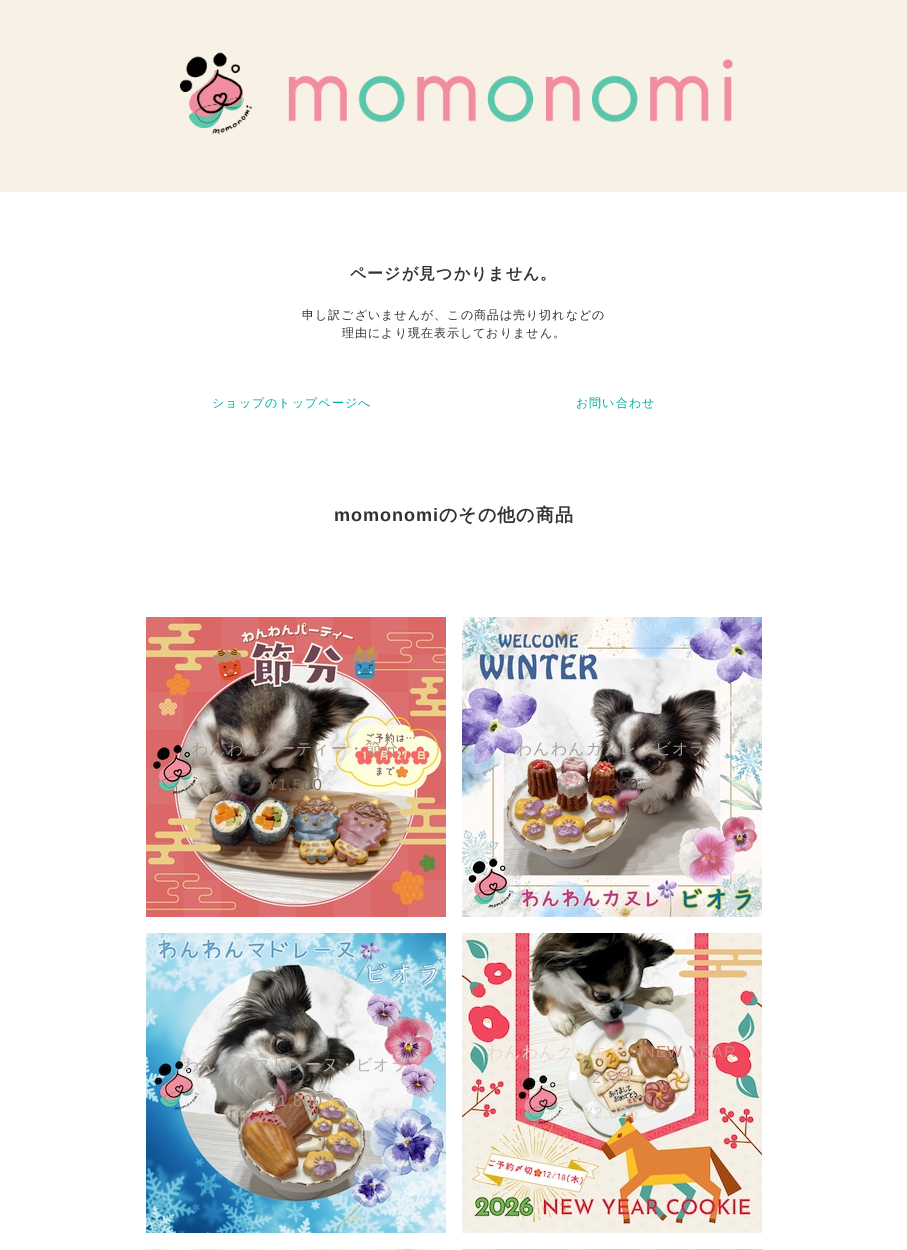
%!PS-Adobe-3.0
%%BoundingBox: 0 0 907 1250
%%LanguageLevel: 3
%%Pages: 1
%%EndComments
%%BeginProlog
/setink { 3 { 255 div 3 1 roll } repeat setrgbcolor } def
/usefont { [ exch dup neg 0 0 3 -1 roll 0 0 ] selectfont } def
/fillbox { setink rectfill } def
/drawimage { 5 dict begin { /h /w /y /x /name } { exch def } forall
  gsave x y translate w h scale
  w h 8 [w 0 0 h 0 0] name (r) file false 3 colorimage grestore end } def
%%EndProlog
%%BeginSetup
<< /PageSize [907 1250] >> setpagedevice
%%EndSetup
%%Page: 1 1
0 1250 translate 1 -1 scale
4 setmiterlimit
0 0 907 1250 248 241 229 fillbox
(assets/img1.rgb) 179 52 554 82 drawimage
0 192 907 1058 255 255 255 fillbox
/WenQuanYiZenHei-Bold 16 usefont
51 51 51 setink
350 279 moveto 1 0 (ページが見つかりません。) ashow
/WenQuanYiZenHei-Medium 12 usefont
302 319 moveto 1 0 (申し訳ございませんが、この商品は売り切れなどの) ashow
342 337 moveto 1 0 (理由により現在表示しておりません。) ashow
0 174 159 setink
212 407 moveto 1 0 (ショップのトップページへ) ashow
576 407 moveto 1 0 (お問い合わせ) ashow
/LiberationSans-Bold 18 usefont
51 51 51 setink
334 521 moveto 1 0 (momonomi) ashow
/WenQuanYiZenHei-Bold 18 usefont
439 521 moveto 1 0 (のその他の商品) ashow
(assets/img2.rgb) 146 617 300 300 drawimage
/WenQuanYiZenHei-Medium 16 usefont
170 149 138 setink
192 754 moveto 1 0 (わんわんパーティー・節分) ashow
/LiberationSans-Regular 16 usefont
122 108 94 setink
268 790 moveto 1 0 (¥1,500) ashow
(assets/img3.rgb) 462 617 300 300 drawimage
/WenQuanYiZenHei-Medium 16 usefont
162 158 157 setink
516 754 moveto 1 0 (わんわんカヌレ・ビオラ) ashow
/LiberationSans-Regular 16 usefont
84 55 50 setink
584 790 moveto 1 0 (¥2,200) ashow
(assets/img4.rgb) 146 933 300 300 drawimage
/WenQuanYiZenHei-Medium 16 usefont
179 175 172 setink
183 1070 moveto 1 0 (わんわんマドレーヌ・ビオラ) ashow
/LiberationSans-Regular 16 usefont
173 143 130 setink
268 1106 moveto 1 0 (¥1,800) ashow
(assets/img5.rgb) 462 933 300 300 drawimage
/WenQuanYiZenHei-Medium 16 usefont
237 212 201 setink
487 1057 moveto 1 0 (わんわんクッキー・) ashow
/LiberationSans-Regular 16 usefont
210 130 125 setink
643 1057 moveto 1 0 (NEW YEAR) ashow
209 185 161 setink
592 1083 moveto 1 0 (2026) ashow
219 215 204 setink
584 1118 moveto 1 0 (¥2,026) ashow
(assets/img6.rgb) 146 1249 300 1 drawimage
(assets/img7.rgb) 462 1249 300 1 drawimage
showpage
%%EOF
